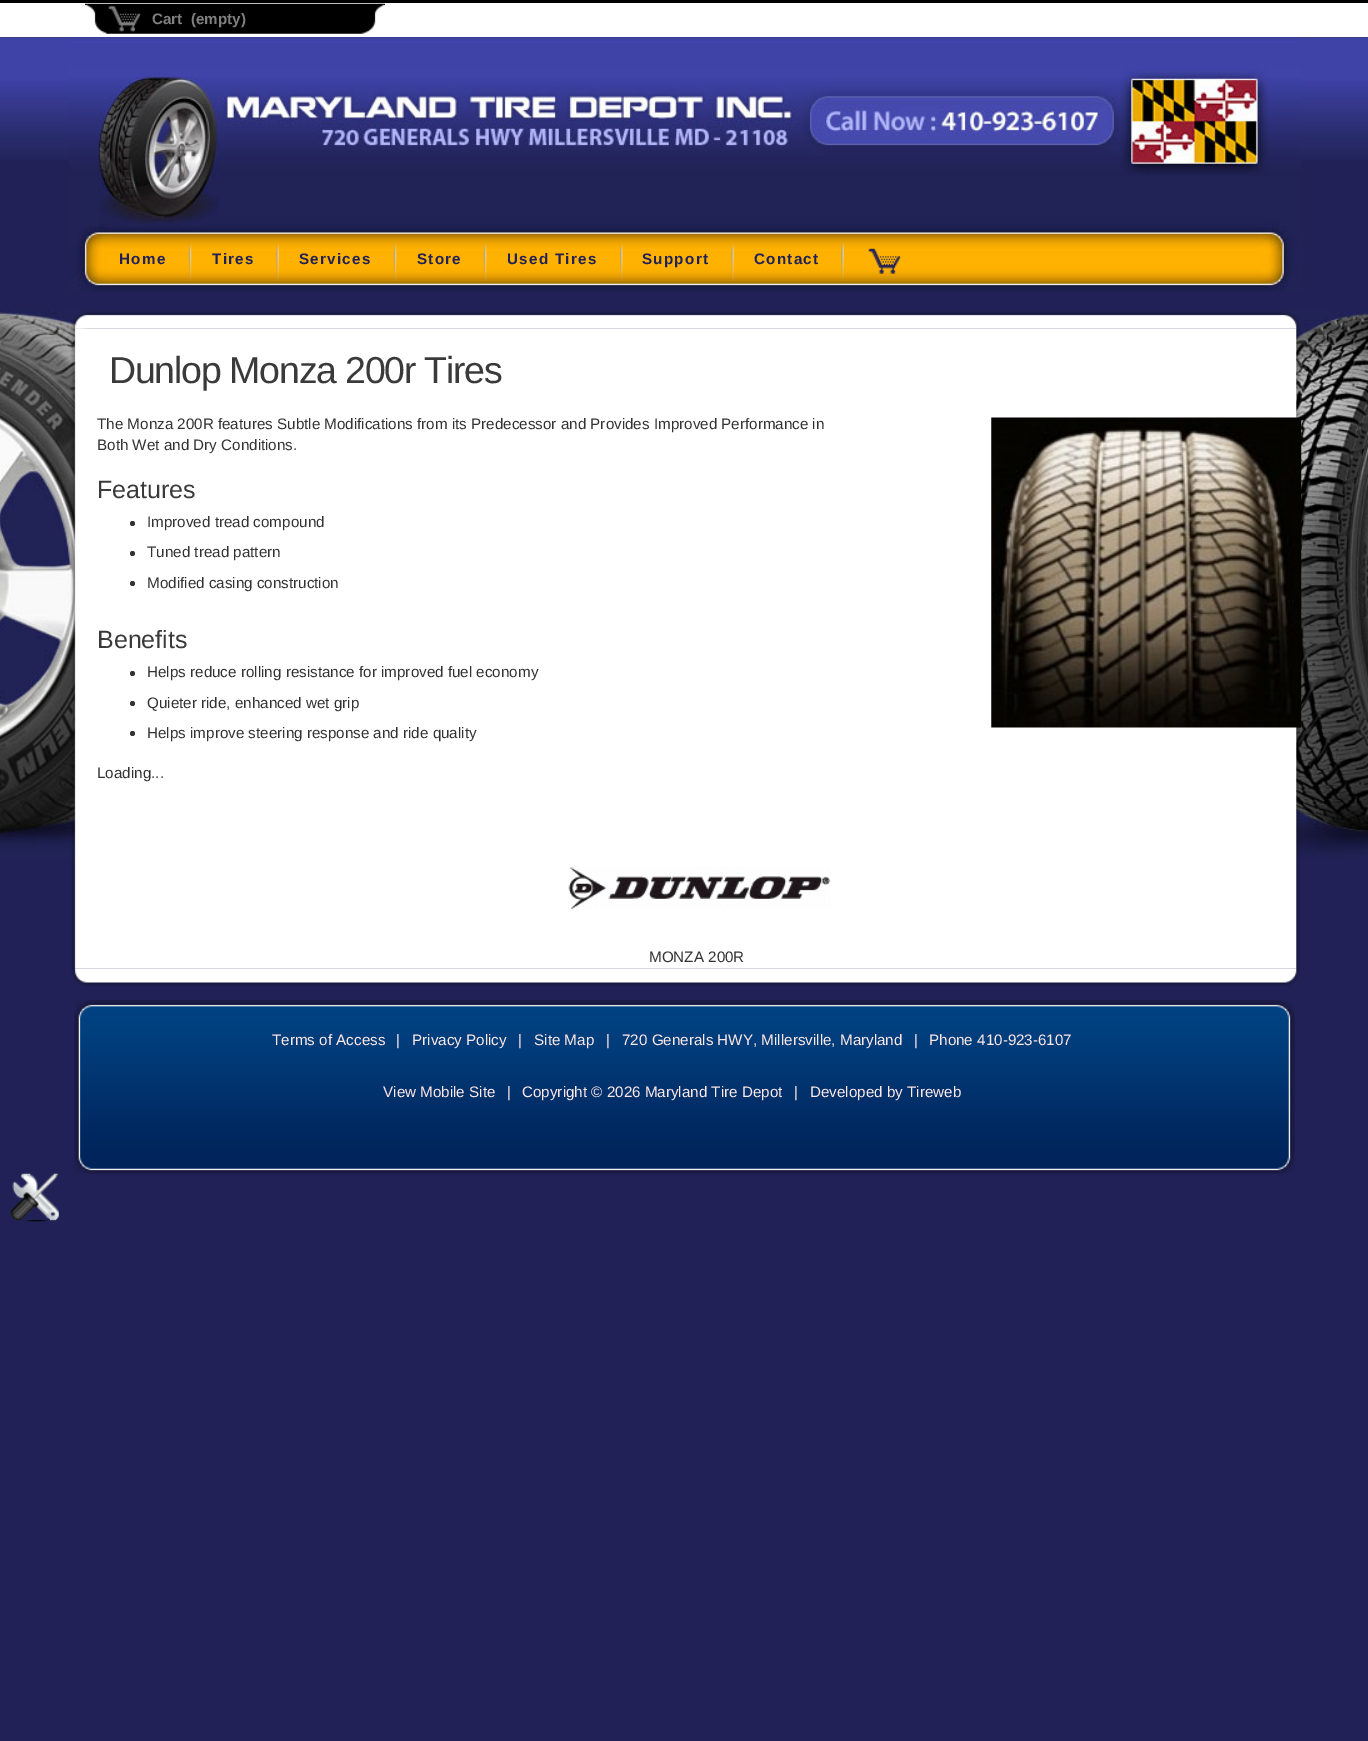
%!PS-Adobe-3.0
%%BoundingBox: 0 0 1368 1741
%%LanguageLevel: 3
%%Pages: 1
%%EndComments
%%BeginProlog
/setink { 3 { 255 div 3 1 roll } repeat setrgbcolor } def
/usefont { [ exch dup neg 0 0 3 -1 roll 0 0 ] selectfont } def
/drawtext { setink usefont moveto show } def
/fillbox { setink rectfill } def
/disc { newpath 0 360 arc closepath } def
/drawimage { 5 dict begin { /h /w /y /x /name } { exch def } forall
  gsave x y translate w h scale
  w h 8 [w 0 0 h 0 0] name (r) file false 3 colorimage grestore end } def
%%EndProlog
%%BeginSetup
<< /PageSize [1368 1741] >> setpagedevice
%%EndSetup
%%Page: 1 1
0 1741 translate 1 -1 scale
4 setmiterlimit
0 0 1368 1741 33 33 87 fillbox
(assets/img1.rgb) 0 37 1368 123 drawimage
0 0 1368 3 0 0 0 fillbox
0 3 1368 34 255 255 255 fillbox
(assets/img2.rgb) 85 3 300 31 drawimage
(Cart  \(empty\)) 152 24 /LiberationSans-Bold 15.2 128 128 128 drawtext
(assets/img3.rgb) 68 37 1234 255 drawimage
33 33 87 setink
119 264 moveto 1.25 0 (Home) ashow
(assets/img4.rgb) 188 242 4 39 drawimage
212 264 moveto 1.25 0 (Tires) ashow
(assets/img5.rgb) 276 242 3 39 drawimage
299 264 moveto 1.25 0 (Services) ashow
(assets/img4.rgb) 393 242 4 39 drawimage
417 264 moveto 1.25 0 (Store) ashow
(assets/img6.rgb) 483 242 4 39 drawimage
507 264 moveto 1.25 0 (Used Tires) ashow
(assets/img7.rgb) 620 242 3 39 drawimage
642 264 moveto 1.25 0 (Support) ashow
(assets/img5.rgb) 731 242 3 39 drawimage
754 264 moveto 1.25 0 (Contact) ashow
(assets/img8.rgb) 841 241 60 40 drawimage
(assets/img9.rgb) 0 310 1368 548 drawimage
(assets/img10.rgb) 71 311 1229 18 drawimage
(assets/img11.rgb) 70 328 1231 641 drawimage
/LiberationSans-Regular 37.5 usefont
58 58 58 setink
109 383 moveto -1.25 0 (Dunlop Monza 200r Tires) ashow
(The Monza 200R features Subtle Modifications from its Predecessor and Provides Improved Performance in) 97 429 /LiberationSans-Regular 15.2 51 51 51 drawtext
(Both Wet and Dry Conditions.) 97 450 /LiberationSans-Regular 15.2 51 51 51 drawtext
(Features) 97 498 /LiberationSans-Regular 25 58 58 58 drawtext
51 51 51 setink
132.5 523.5 2.5 disc fill
(Improved tread compound) 147 527 /LiberationSans-Regular 15.2 51 51 51 drawtext
132.5 553.5 2.5 disc fill
(Tuned tread pattern) 147 557 /LiberationSans-Regular 15.2 51 51 51 drawtext
132.5 583.5 2.5 disc fill
(Modified casing construction) 147 588 /LiberationSans-Regular 15.2 51 51 51 drawtext
(Benefits) 97 648 /LiberationSans-Regular 25 58 58 58 drawtext
51 51 51 setink
132.5 673.5 2.5 disc fill
(Helps reduce rolling resistance for improved fuel economy) 147 677 /LiberationSans-Regular 15.2 51 51 51 drawtext
132.5 703.5 2.5 disc fill
(Quieter ride, enhanced wet grip) 147 708 /LiberationSans-Regular 15.2 51 51 51 drawtext
132.5 733.5 2.5 disc fill
(Helps improve steering response and ride quality) 147 738 /LiberationSans-Regular 15.2 51 51 51 drawtext
(Loading...) 97 778 /LiberationSans-Regular 15.2 51 51 51 drawtext
(assets/img12.rgb) 991 417 311 311 drawimage
(assets/img13.rgb) 568 867 263 42 drawimage
(MONZA 200R) 649 962 /LiberationSans-Regular 15.2 51 51 51 drawtext
(assets/img14.rgb) 71 968 1229 19 drawimage
(assets/img15.rgb) 74 1000 1221 174 drawimage
(Terms of Access) 272 1045 /LiberationSans-Regular 15.2 255 232 232 drawtext
(|) 396 1045 /LiberationSans-Regular 15.2 255 232 232 drawtext
(Privacy Policy) 412 1045 /LiberationSans-Regular 15.2 255 232 232 drawtext
(|) 518 1045 /LiberationSans-Regular 15.2 255 232 232 drawtext
(Site Map) 534 1045 /LiberationSans-Regular 15.2 255 232 232 drawtext
(|) 606 1045 /LiberationSans-Regular 15.2 255 232 232 drawtext
(720 Generals HWY, Millersville, Maryland) 622 1045 /LiberationSans-Regular 15.2 255 232 232 drawtext
(|) 914 1045 /LiberationSans-Regular 15.2 255 232 232 drawtext
(Phone 410-923-6107) 929 1045 /LiberationSans-Regular 15.2 255 232 232 drawtext
(View Mobile Site) 383 1097 /LiberationSans-Regular 15.2 255 232 232 drawtext
(|) 507 1097 /LiberationSans-Regular 15.2 255 232 232 drawtext
(Copyright © 2026 Maryland Tire Depot) 522 1097 /LiberationSans-Regular 15.2 255 232 232 drawtext
(|) 794 1097 /LiberationSans-Regular 15.2 255 232 232 drawtext
(Developed by Tireweb) 810 1097 /LiberationSans-Regular 15.2 255 232 232 drawtext
(assets/img16.rgb) 10 1173 49 49 drawimage
showpage
%%EOF
